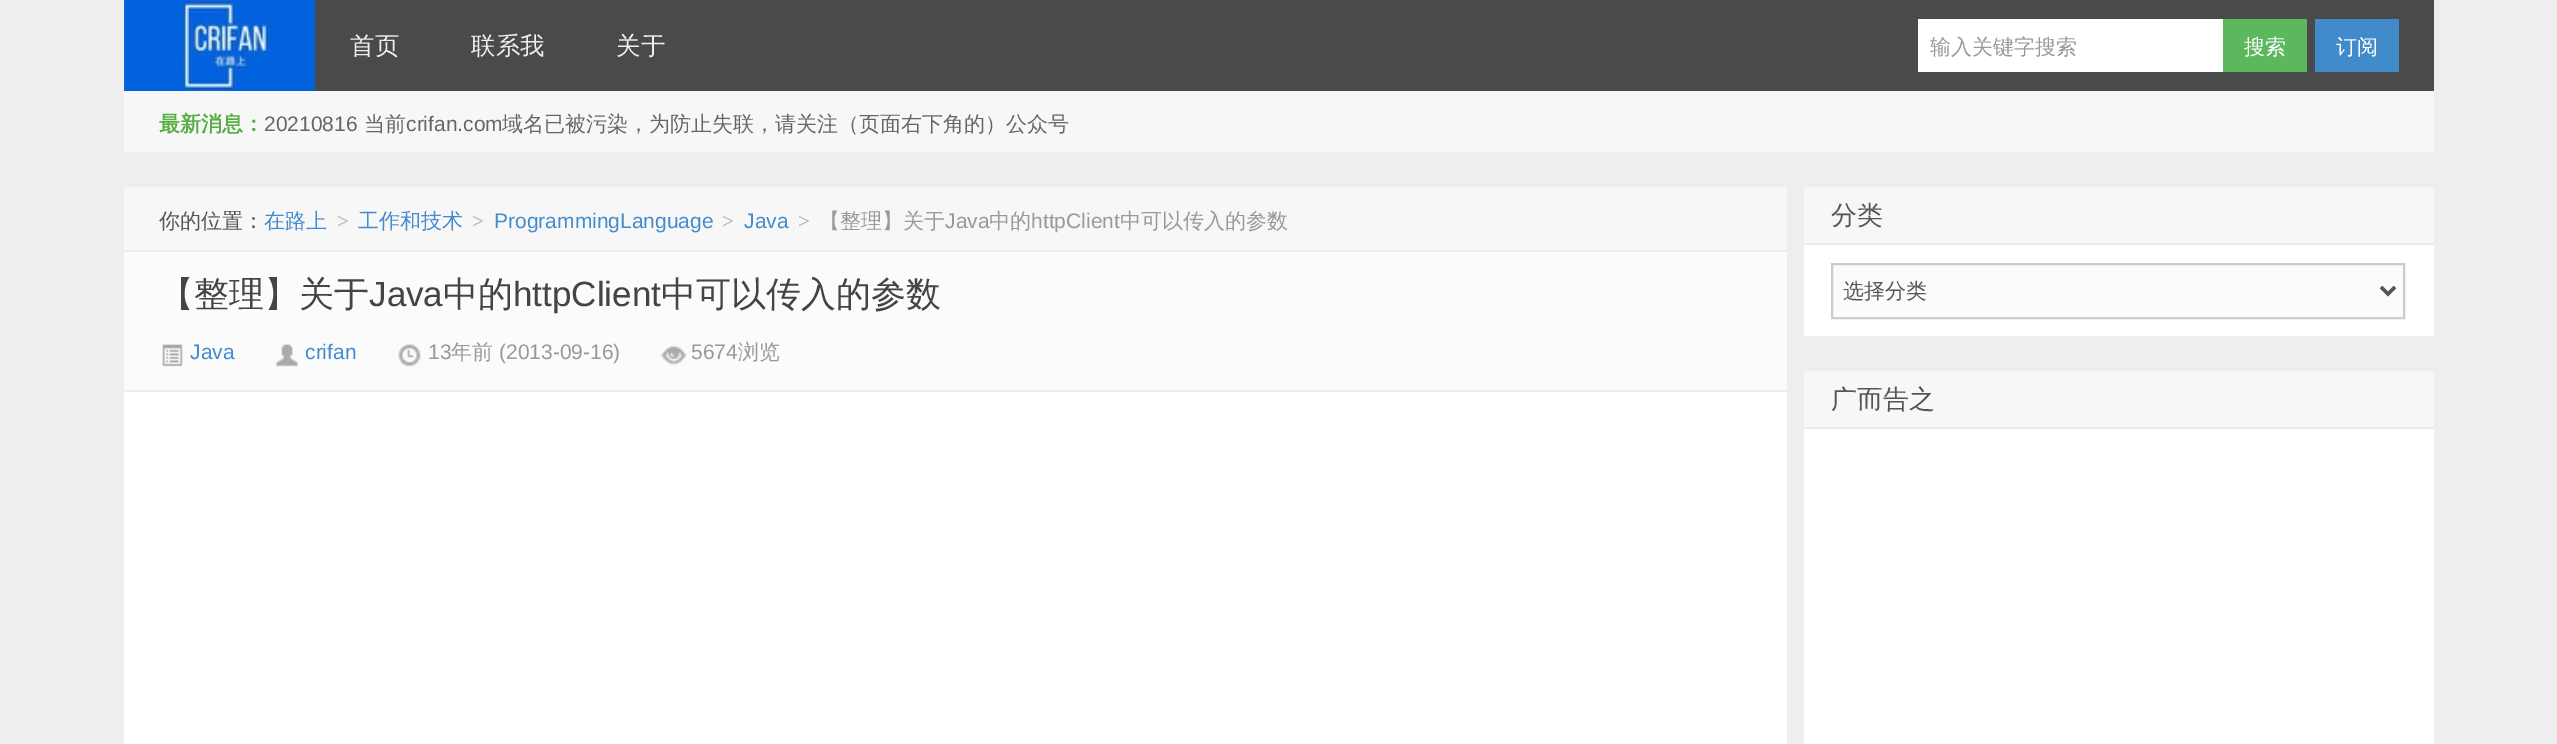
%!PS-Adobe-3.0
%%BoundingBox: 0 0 2557 744
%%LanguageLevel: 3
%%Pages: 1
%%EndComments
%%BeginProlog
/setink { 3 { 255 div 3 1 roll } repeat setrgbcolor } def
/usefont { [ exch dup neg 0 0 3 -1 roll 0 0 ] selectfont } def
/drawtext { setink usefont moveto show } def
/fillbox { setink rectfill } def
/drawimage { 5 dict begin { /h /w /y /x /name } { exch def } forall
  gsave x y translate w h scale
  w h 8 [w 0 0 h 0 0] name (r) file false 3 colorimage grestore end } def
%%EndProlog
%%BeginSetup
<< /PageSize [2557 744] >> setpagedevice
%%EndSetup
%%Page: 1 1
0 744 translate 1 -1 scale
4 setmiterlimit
0 0 2557 744 238 238 238 fillbox
124 0 2310 91 74 74 74 fillbox
(assets/img1.rgb) 124 0 191 91 drawimage
(首页) 350 54 /WenQuanYiZenHei-Medium 24.5 238 238 238 drawtext
(联系我) 471 54 /WenQuanYiZenHei-Medium 24.5 238 238 238 drawtext
(关于) 616 54 /WenQuanYiZenHei-Medium 24.5 238 238 238 drawtext
1918 19 305 53 255 255 255 fillbox
(输入关键字搜索) 1930 54 /WenQuanYiZenHei-Medium 21 153 153 153 drawtext
2223 19 84 53 92 184 92 fillbox
(搜索) 2244 54 /WenQuanYiZenHei-Medium 21 255 255 255 drawtext
2315 19 84 53 66 139 202 fillbox
(订阅) 2336 54 /WenQuanYiZenHei-Medium 21 255 255 255 drawtext
124 91 2310 61 247 247 247 fillbox
(最新消息：) 159 131 /WenQuanYiZenHei-Bold 21 86 175 69 drawtext
(20210816) 264 131 /LiberationSans-Regular 21 102 102 102 drawtext
(当前) 364 131 /WenQuanYiZenHei-Medium 21 102 102 102 drawtext
(crifan.com) 406 131 /LiberationSans-Regular 21 102 102 102 drawtext
(域名已被污染，为防止失联，请关注（页面右下角的）公众号) 502 131 /WenQuanYiZenHei-Medium 21 102 102 102 drawtext
124 187 1663 63 247 247 247 fillbox
(你的位置：) 159 228 /WenQuanYiZenHei-Medium 21 85 85 85 drawtext
(在路上) 264 228 /WenQuanYiZenHei-Medium 21 66 139 209 drawtext
(>) 337 228 /LiberationSerif-Bold 21 187 187 187 drawtext
(工作和技术) 358 228 /WenQuanYiZenHei-Medium 21 66 139 209 drawtext
(>) 472 228 /LiberationSerif-Bold 21 187 187 187 drawtext
(ProgrammingLanguage) 494 228 /LiberationSans-Regular 21 66 139 209 drawtext
(>) 722 228 /LiberationSerif-Bold 21 187 187 187 drawtext
(Java) 744 228 /LiberationSans-Regular 21 66 139 209 drawtext
(>) 798 228 /LiberationSerif-Bold 21 187 187 187 drawtext
(【整理】关于) 819 228 /WenQuanYiZenHei-Medium 21 153 153 153 drawtext
(Java) 945 228 /LiberationSans-Regular 21 153 153 153 drawtext
(中的) 989 228 /WenQuanYiZenHei-Medium 21 153 153 153 drawtext
(httpClient) 1031 228 /LiberationSans-Regular 21 153 153 153 drawtext
(中可以传入的参数) 1120 228 /WenQuanYiZenHei-Medium 21 153 153 153 drawtext
124 252 1663 138 251 251 251 fillbox
(【整理】关于) 159 306 /WenQuanYiZenHei-Medium 35 68 68 68 drawtext
(Java) 369 306 /LiberationSans-Regular 35 68 68 68 drawtext
(中的) 443 306 /WenQuanYiZenHei-Medium 35 68 68 68 drawtext
(httpClient) 513 306 /LiberationSans-Regular 35 68 68 68 drawtext
(中可以传入的参数) 661 306 /WenQuanYiZenHei-Medium 35 68 68 68 drawtext
(assets/img2.rgb) 162 344 21 23 drawimage
(Java) 190 359 /LiberationSans-Regular 21 66 139 209 drawtext
(assets/img3.rgb) 276 344 22 23 drawimage
(crifan) 305 359 /LiberationSans-Regular 21 66 139 209 drawtext
(assets/img4.rgb) 398 344 23 23 drawimage
(13) 428 359 /LiberationSans-Regular 21 153 153 153 drawtext
(年前) 451 359 /WenQuanYiZenHei-Medium 21 153 153 153 drawtext
(\(2013-09-16\)) 499 359 /LiberationSans-Regular 21 153 153 153 drawtext
(assets/img5.rgb) 661 346 25 19 drawimage
(5674) 691 359 /LiberationSans-Regular 21 153 153 153 drawtext
(浏览) 738 359 /WenQuanYiZenHei-Medium 21 153 153 153 drawtext
124 392 1663 352 255 255 255 fillbox
1804 245 630 91 255 255 255 fillbox
1804 187 630 56 247 247 247 fillbox
1804 243 630 2 234 234 234 fillbox
(分类) 1831 224 /WenQuanYiZenHei-Medium 26 85 85 85 drawtext
251 251 251 setink
1832 264 moveto 2404 264 lineto 2404 318 lineto 1832 318 lineto closepath gsave fill grestore
204 204 204 setink
2 setlinewidth
stroke
85 85 85 setink
3.5 setlinewidth
2381 287 moveto 2388 294 lineto 2395 287 lineto stroke
(选择分类) 1843 298 /WenQuanYiZenHei-Medium 21 85 85 85 drawtext
1804 429 630 315 255 255 255 fillbox
1804 371 630 56 247 247 247 fillbox
1804 427 630 2 234 234 234 fillbox
(广而告之) 1831 408 /WenQuanYiZenHei-Medium 26 85 85 85 drawtext
showpage
%%EOF
